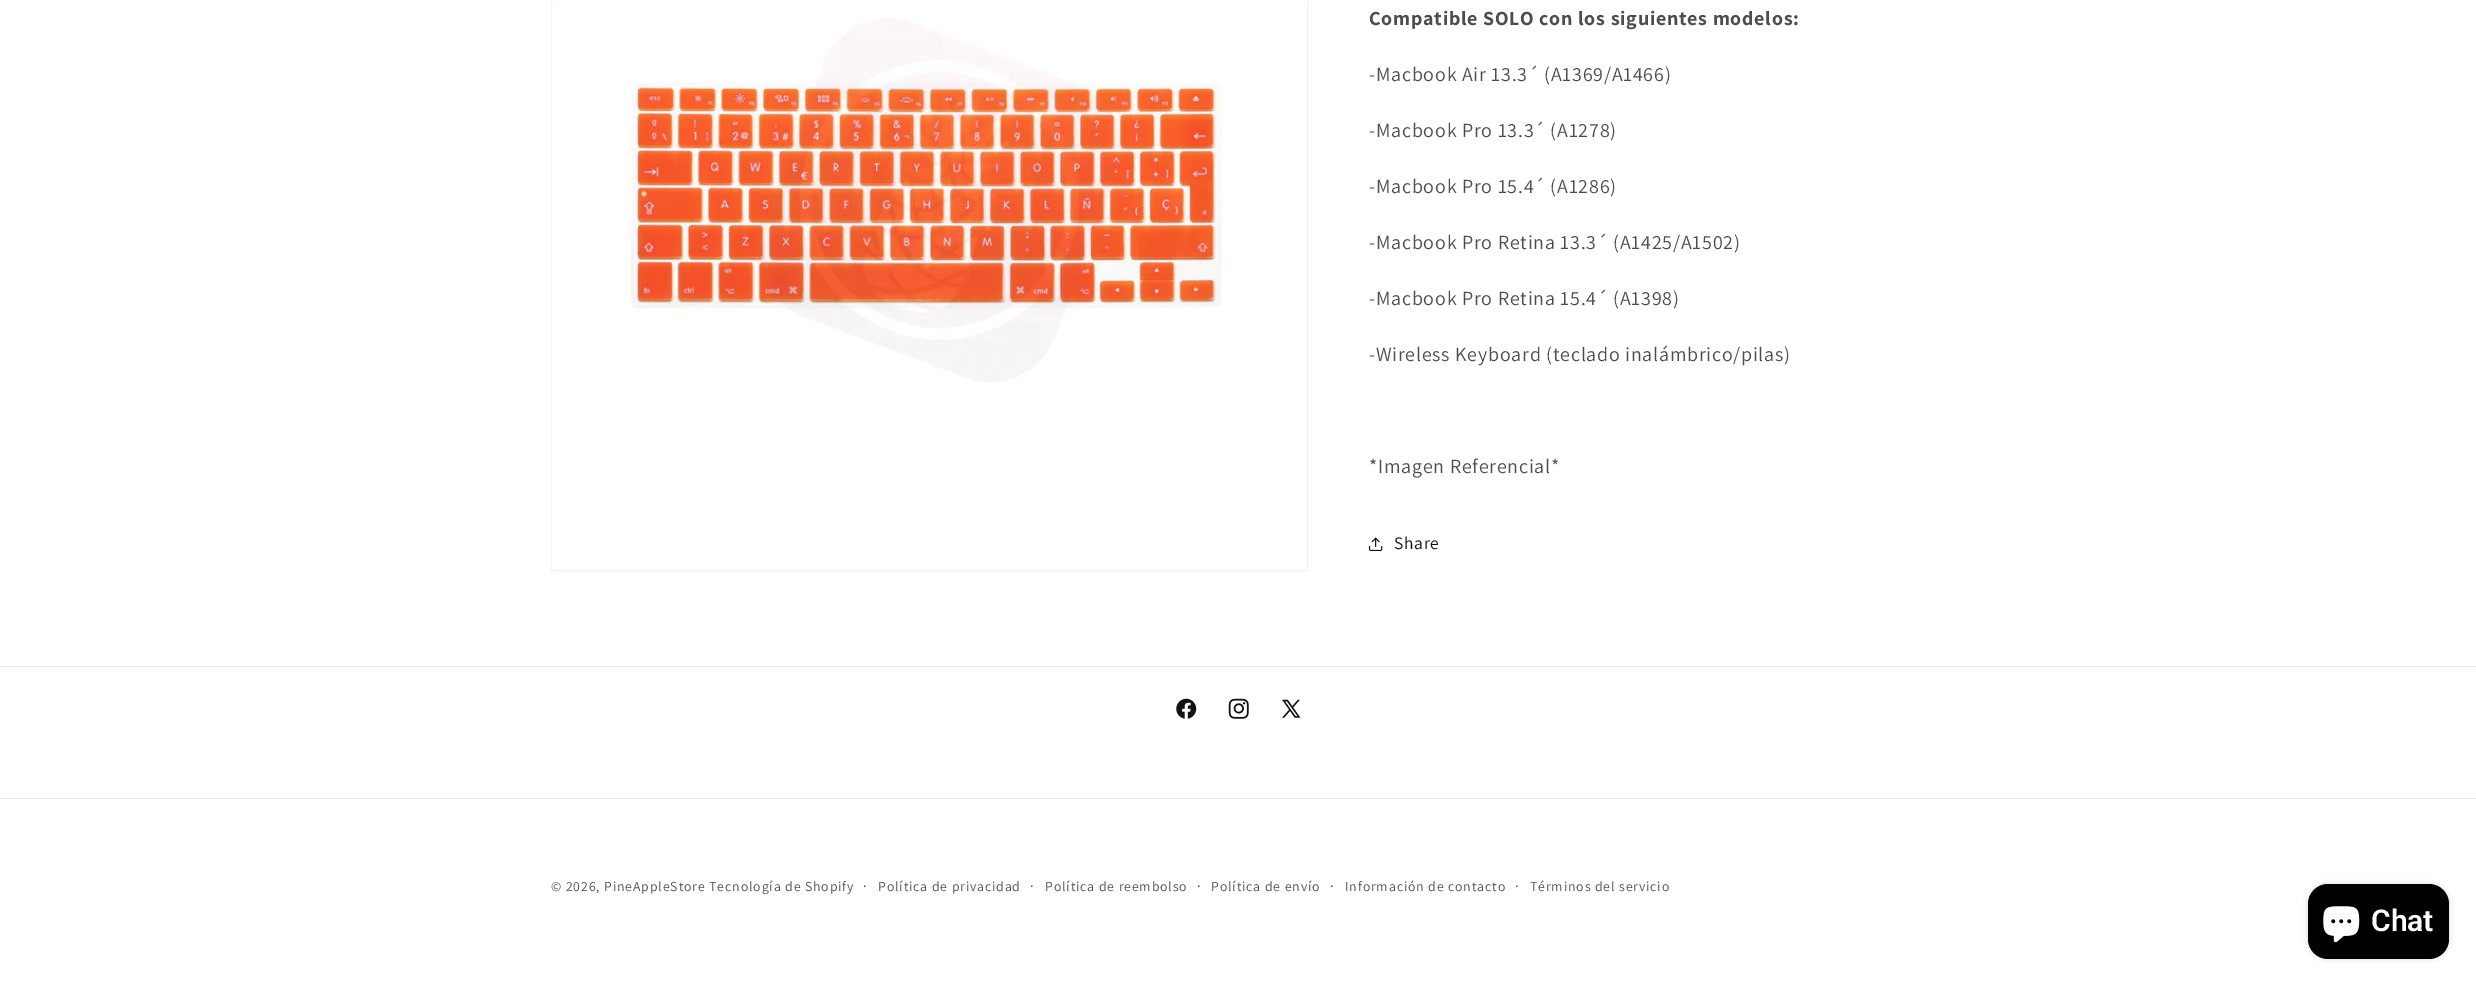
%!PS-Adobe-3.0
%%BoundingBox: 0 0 2476 985
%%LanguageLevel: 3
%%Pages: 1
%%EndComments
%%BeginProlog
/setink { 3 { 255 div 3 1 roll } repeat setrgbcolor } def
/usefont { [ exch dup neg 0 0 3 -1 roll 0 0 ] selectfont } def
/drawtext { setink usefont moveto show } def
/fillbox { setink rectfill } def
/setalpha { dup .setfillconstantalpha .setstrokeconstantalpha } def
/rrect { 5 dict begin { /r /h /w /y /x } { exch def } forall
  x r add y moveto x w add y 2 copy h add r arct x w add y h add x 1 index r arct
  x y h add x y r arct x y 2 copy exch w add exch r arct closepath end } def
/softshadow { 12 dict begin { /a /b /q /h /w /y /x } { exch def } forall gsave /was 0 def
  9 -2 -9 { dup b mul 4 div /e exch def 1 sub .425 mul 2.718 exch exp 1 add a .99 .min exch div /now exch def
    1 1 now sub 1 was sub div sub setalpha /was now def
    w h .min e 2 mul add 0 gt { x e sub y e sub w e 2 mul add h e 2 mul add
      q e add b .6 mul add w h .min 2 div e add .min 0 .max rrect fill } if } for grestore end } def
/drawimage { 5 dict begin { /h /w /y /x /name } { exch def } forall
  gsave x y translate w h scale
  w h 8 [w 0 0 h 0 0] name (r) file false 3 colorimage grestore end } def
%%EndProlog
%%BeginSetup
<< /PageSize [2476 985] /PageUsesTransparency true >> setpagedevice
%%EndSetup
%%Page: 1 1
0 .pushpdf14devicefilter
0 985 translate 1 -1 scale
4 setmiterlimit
0 0 2476 985 255 255 255 fillbox
243 243 243 setink
551.5 -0.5 756 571 rectstroke
(assets/img1.rgb) 630 18 593 365 drawimage
/Assistant-Bold 20 usefont
77 77 77 setink
1369 25 moveto 0.75 0 (Compatible SOLO con los siguientes modelos:) ashow
/Assistant-Regular 20 usefont
1369 81 moveto 0.75 0 (-Macbook Air 13.3´ \(A1369/A1466\)) ashow
1369 137 moveto 0.75 0 (-Macbook Pro 13.3´ \(A1278\)) ashow
1369 193 moveto 0.75 0 (-Macbook Pro 15.4´ \(A1286\)) ashow
1369 249 moveto 0.75 0 (-Macbook Pro Retina 13.3´ \(A1425/A1502\)) ashow
1369 305 moveto 0.75 0 (-Macbook Pro Retina 15.4´ \(A1398\)) ashow
1369 361 moveto 0.75 0 (-Wireless Keyboard \(teclado inalámbrico/pilas\)) ashow
1369 473 moveto 0.75 0 (*Imagen Referencial*) ashow
(assets/img2.rgb) 1368 537 15 14 drawimage
/Assistant-Regular 17.5 usefont
18 18 18 setink
1394 549 moveto 0.75 0 (Share) ashow
0 666 2476 1 236 236 236 fillbox
(assets/img3.rgb) 1176 698 21 21 drawimage
(assets/img4.rgb) 1228 698 21 21 drawimage
(assets/img5.rgb) 1282 699 19 19 drawimage
0 798 2476 1 236 236 236 fillbox
/Assistant-Regular 13.75 usefont
77 77 77 setink
551 891 moveto 0.9 0 (© 2026, PineAppleStore Tecnología de Shopify) ashow
/Assistant-Regular 15 usefont
863 891 moveto 0.9 0 (·) ashow
/Assistant-Regular 13.75 usefont
878 891 moveto 0.9 0 (Política de privacidad) ashow
/Assistant-Regular 15 usefont
1030 891 moveto 0.9 0 (·) ashow
/Assistant-Regular 13.75 usefont
1045 891 moveto 0.9 0 (Política de reembolso) ashow
/Assistant-Regular 15 usefont
1197 891 moveto 0.9 0 (·) ashow
/Assistant-Regular 13.75 usefont
1211 891 moveto 0.9 0 (Política de envío) ashow
/Assistant-Regular 15 usefont
1330 891 moveto 0.9 0 (·) ashow
/Assistant-Regular 13.75 usefont
1345 891 moveto 0.9 0 (Información de contacto) ashow
/Assistant-Regular 15 usefont
1515 891 moveto 0.9 0 (·) ashow
/Assistant-Regular 13.75 usefont
1530 891 moveto 0.9 0 (Términos del servicio) ashow
0 0 0 setink
2308 884 141 75 20 3 0.15 softshadow
2308 884 141 75 20 rrect fill
(assets/img6.rgb) 2323 906 37 37 drawimage
(Chat) 2371 931 /Roboto-SemiBold 30 255 255 255 drawtext
.poppdf14devicefilter showpage
%%EOF
